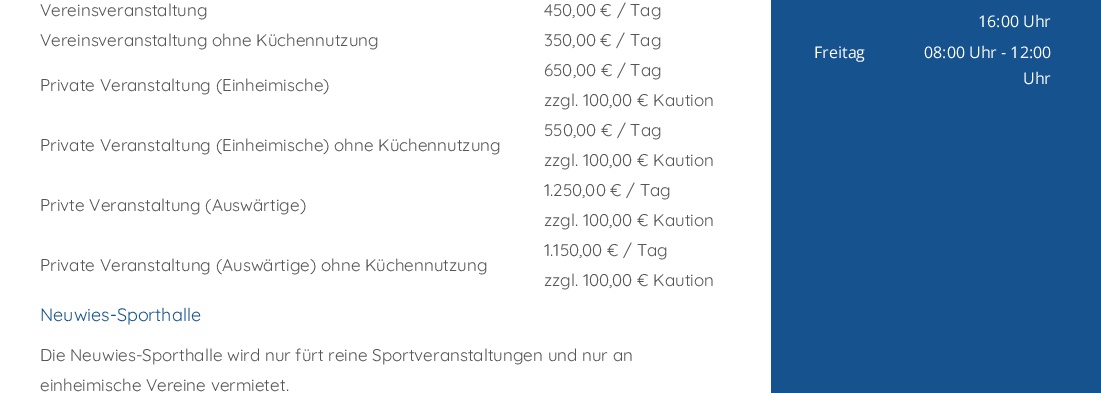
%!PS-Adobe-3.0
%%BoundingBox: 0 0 1101 393
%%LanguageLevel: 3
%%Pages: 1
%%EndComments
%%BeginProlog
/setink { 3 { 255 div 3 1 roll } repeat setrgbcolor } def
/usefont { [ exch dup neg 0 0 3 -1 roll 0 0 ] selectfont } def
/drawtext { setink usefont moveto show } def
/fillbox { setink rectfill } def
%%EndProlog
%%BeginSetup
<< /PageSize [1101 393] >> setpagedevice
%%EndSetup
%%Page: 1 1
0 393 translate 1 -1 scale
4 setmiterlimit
0 0 1101 393 22 82 142 fillbox
0 0 771 393 255 255 255 fillbox
(Vereinsveranstaltung) 40 16 /Quicksand-Light 17 85 85 85 drawtext
(450,00 € / Tag) 544 16 /Quicksand-Light 17 85 85 85 drawtext
(Vereinsveranstaltung ohne Küchennutzung) 40 46 /Quicksand-Light 17 85 85 85 drawtext
(350,00 € / Tag) 544 46 /Quicksand-Light 17 85 85 85 drawtext
(Private Veranstaltung \(Einheimische\)) 40 91 /Quicksand-Light 17 85 85 85 drawtext
(650,00 € / Tag) 544 76 /Quicksand-Light 17 85 85 85 drawtext
(zzgl. 100,00 € Kaution) 544 106 /Quicksand-Light 17 85 85 85 drawtext
(Private Veranstaltung \(Einheimische\) ohne Küchennutzung) 40 151 /Quicksand-Light 17 85 85 85 drawtext
(550,00 € / Tag) 544 136 /Quicksand-Light 17 85 85 85 drawtext
(zzgl. 100,00 € Kaution) 544 166 /Quicksand-Light 17 85 85 85 drawtext
(Privte Veranstaltung \(Auswärtige\)) 40 211 /Quicksand-Light 17 85 85 85 drawtext
(1.250,00 € / Tag) 544 196 /Quicksand-Light 17 85 85 85 drawtext
(zzgl. 100,00 € Kaution) 544 226 /Quicksand-Light 17 85 85 85 drawtext
(Private Veranstaltung \(Auswärtige\) ohne Küchennutzung) 40 271 /Quicksand-Light 17 85 85 85 drawtext
(1.150,00 € / Tag) 544 256 /Quicksand-Light 17 85 85 85 drawtext
(zzgl. 100,00 € Kaution) 544 286 /Quicksand-Light 17 85 85 85 drawtext
(Neuwies-Sporthalle) 40 321 /Quicksand-Light 18 22 82 142 drawtext
(Die Neuwies-Sporthalle wird nur fürt reine Sportveranstaltungen und nur an) 40 361 /Quicksand-Light 17 85 85 85 drawtext
(einheimische Vereine vermietet.) 40 391 /Quicksand-Light 17 85 85 85 drawtext
(16:00 Uhr) 978 27 /OpenSans-Regular 16 255 255 255 drawtext
(Freitag) 814 58 /OpenSans-Regular 16 255 255 255 drawtext
(08:00 Uhr - 12:00) 924 58 /OpenSans-Regular 16 255 255 255 drawtext
(Uhr) 1023 84 /OpenSans-Regular 16 255 255 255 drawtext
showpage
%%EOF
